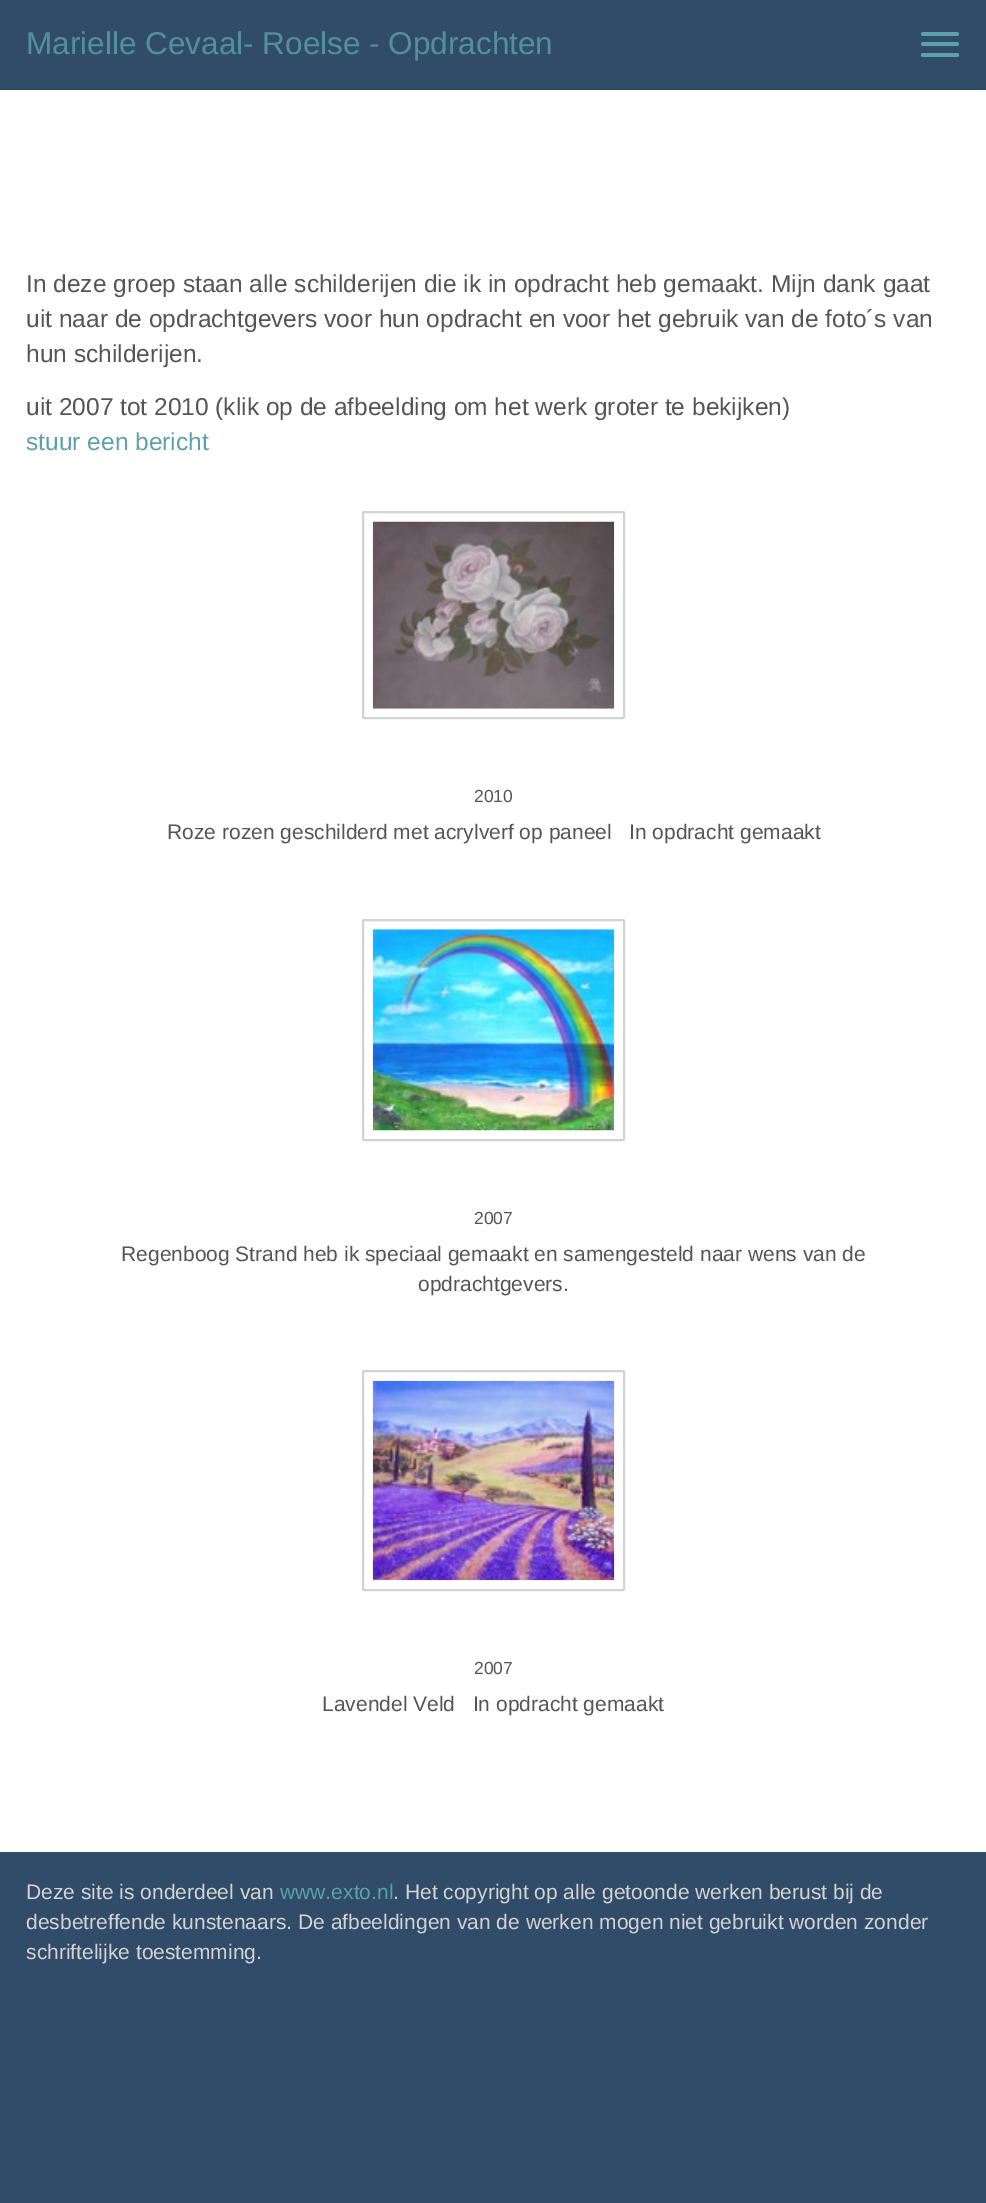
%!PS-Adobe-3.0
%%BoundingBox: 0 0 986 2203
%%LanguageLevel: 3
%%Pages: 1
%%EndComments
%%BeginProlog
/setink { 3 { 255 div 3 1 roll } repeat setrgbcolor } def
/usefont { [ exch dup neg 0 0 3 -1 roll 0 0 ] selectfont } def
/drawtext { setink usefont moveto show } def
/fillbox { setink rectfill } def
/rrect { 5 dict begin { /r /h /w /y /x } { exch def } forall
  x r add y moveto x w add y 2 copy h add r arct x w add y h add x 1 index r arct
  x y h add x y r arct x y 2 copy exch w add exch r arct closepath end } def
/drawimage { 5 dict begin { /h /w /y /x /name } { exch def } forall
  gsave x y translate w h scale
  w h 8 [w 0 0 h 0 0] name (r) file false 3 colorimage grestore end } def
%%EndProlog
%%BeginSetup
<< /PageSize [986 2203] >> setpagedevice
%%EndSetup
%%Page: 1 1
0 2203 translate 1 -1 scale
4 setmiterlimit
0 0 986 2203 49 76 104 fillbox
(Marielle Cevaal- Roelse - Opdrachten) 26 54 /LiberationSans-Regular 31.5 83 144 158 drawtext
91 161 172 setink
921 32 38 4 2 rrect fill
921 42 38 4 2 rrect fill
921 53 38 4 2 rrect fill
0 90 986 1762 255 255 255 fillbox
(In deze groep staan alle schilderijen die ik in opdracht heb gemaakt. Mijn dank gaat) 26 292 /LiberationSans-Regular 24.5 85 85 85 drawtext
(uit naar de opdrachtgevers voor hun opdracht en voor het gebruik van de foto´s van) 26 327 /LiberationSans-Regular 24.5 85 85 85 drawtext
(hun schilderijen.) 26 362 /LiberationSans-Regular 24.5 85 85 85 drawtext
(uit 2007 tot 2010 \(klik op de afbeelding om het werk groter te bekijken\)) 26 415 /LiberationSans-Regular 24.5 85 85 85 drawtext
(stuur een bericht) 26 450 /LiberationSans-Regular 24.5 91 161 172 drawtext
211 211 211 setink
2 setlinewidth
363 512 261 206 1 rrect stroke
(assets/img1.rgb) 372 521 243 188 drawimage
(2010) 474 802 /LiberationSans-Regular 17.5 85 85 85 drawtext
(Roze rozen geschilderd met acrylverf op paneel   In opdracht gemaakt) 167 839 /LiberationSans-Regular 21 85 85 85 drawtext
211 211 211 setink
363 920 261 220 1 rrect stroke
(assets/img2.rgb) 372 929 243 202 drawimage
(2007) 474 1224 /LiberationSans-Regular 17.5 85 85 85 drawtext
(Regenboog Strand heb ik speciaal gemaakt en samengesteld naar wens van de) 121 1261 /LiberationSans-Regular 21 85 85 85 drawtext
(opdrachtgevers.) 418 1291 /LiberationSans-Regular 21 85 85 85 drawtext
211 211 211 setink
363 1371 261 219 1 rrect stroke
(assets/img3.rgb) 372 1380 243 201 drawimage
(2007) 474 1674 /LiberationSans-Regular 17.5 85 85 85 drawtext
(Lavendel Veld   In opdracht gemaakt) 322 1711 /LiberationSans-Regular 21 85 85 85 drawtext
(Deze site is onderdeel van) 26 1899 /LiberationSans-Regular 21 211 211 211 drawtext
(www.exto.nl) 280 1899 /LiberationSans-Regular 21 91 161 172 drawtext
(. Het copyright op alle getoonde werken berust bij de) 393 1899 /LiberationSans-Regular 21 211 211 211 drawtext
(desbetreffende kunstenaars. De afbeeldingen van de werken mogen niet gebruikt worden zonder) 26 1929 /LiberationSans-Regular 21 211 211 211 drawtext
(schriftelijke toestemming.) 26 1959 /LiberationSans-Regular 21 211 211 211 drawtext
showpage
%%EOF
